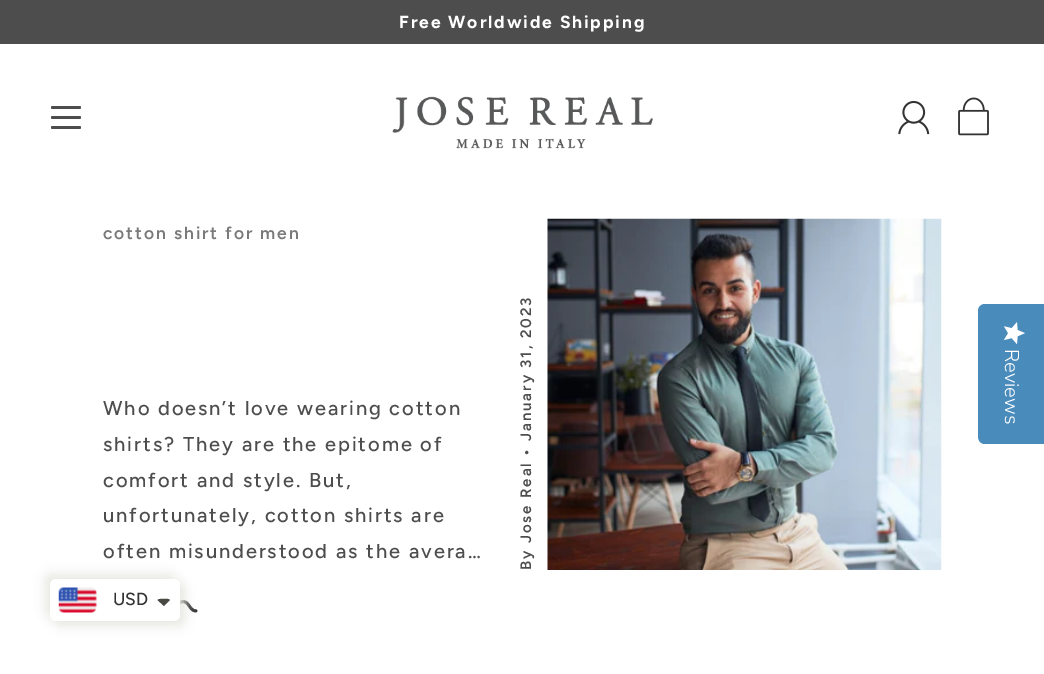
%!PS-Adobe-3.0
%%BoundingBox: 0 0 1044 674
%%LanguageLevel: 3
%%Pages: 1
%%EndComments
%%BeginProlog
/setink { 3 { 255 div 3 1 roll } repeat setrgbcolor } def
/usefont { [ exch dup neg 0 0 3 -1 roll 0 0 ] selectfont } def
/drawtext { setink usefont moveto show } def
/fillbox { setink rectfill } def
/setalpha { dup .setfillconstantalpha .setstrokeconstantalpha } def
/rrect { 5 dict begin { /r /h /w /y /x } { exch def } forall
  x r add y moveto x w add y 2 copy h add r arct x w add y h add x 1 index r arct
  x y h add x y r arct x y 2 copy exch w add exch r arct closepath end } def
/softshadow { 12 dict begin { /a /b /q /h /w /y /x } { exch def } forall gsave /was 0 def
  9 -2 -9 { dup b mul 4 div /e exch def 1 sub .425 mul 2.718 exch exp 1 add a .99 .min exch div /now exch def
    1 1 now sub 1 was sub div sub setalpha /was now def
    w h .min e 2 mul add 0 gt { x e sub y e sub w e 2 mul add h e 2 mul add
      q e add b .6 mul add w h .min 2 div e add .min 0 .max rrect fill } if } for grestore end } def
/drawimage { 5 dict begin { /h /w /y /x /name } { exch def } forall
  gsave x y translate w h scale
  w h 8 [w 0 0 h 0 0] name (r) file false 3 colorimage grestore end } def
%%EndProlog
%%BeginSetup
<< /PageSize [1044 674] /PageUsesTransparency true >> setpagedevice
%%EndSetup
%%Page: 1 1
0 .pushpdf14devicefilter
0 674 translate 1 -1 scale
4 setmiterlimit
0 0 1044 674 255 255 255 fillbox
0 0 1044 44 77 77 77 fillbox
/Figtree-Bold 17.5 usefont
255 255 255 setink
399 28 moveto 1.9 0 (Free Worldwide Shipping) ashow
(assets/img1.rgb) 392 96 261 53 drawimage
77 77 77 setink
51 116 30 3 1.5 rrect fill
51 106 30 3 1.5 rrect fill
51 126 30 3 1.5 rrect fill
(assets/img2.rgb) 898 100 32 35 drawimage
(assets/img3.rgb) 958 97 31 39 drawimage
/Figtree-SemiBold 17.5 usefont
122 122 122 setink
103 239 moveto 1.9 0 (cotton shirt for men) ashow
/Figtree-Medium 20.1 usefont
77 77 77 setink
103 415 moveto 1.9 0 (Who doesn’t love wearing cotton) ashow
103 451 moveto 1.9 0 (shirts? They are the epitome of) ashow
103 487 moveto 1.9 0 (comfort and style. But,) ashow
103 522 moveto 1.9 0 (unfortunately, cotton shirts are) ashow
103 558 moveto 1.9 0 (often misunderstood as the avera…) ashow
(assets/img4.rgb) 180 600 18 13 drawimage
/Figtree-SemiBold 15 usefont
gsave 531 441 translate -90 rotate 0 0 moveto 1.9 0 (January 31, 2023) ashow grestore
gsave 531 570 translate -90 rotate 0 0 moveto 1.9 0 (By Jose Real •) ashow grestore
(assets/img5.rgb) 547 218 395 352 drawimage
73 140 188 setink
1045 304 moveto 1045 444 lineto 985 444 lineto 981 444 978 441 978 436 curveto 978 311 lineto 978 307 981 304 985 304 curveto closepath fill
(assets/img6.rgb) 1003 322 22 22 drawimage
/NunitoSans-Light 20 usefont
255 255 255 setink
gsave 1005 349 translate 90 rotate 0 0 moveto (Reviews) show grestore
232 232 226 setink
45 574 130 42 6 5.5 1 softshadow
55 584 130 42 6 5.5 1 softshadow
255 255 255 setink
50 579 130 42 6 rrect fill
(assets/img7.rgb) 58 587 39 26 drawimage
(USD) 113 605 /Figtree-Medium 17.5 51 51 51 drawtext
71 73 66 setink
160 599 moveto 162.5 599 168 598 170 600 curveto 164 606 lineto 157.5 600 lineto 158 599.5 159 599 160 599 curveto closepath fill
.poppdf14devicefilter showpage
%%EOF
